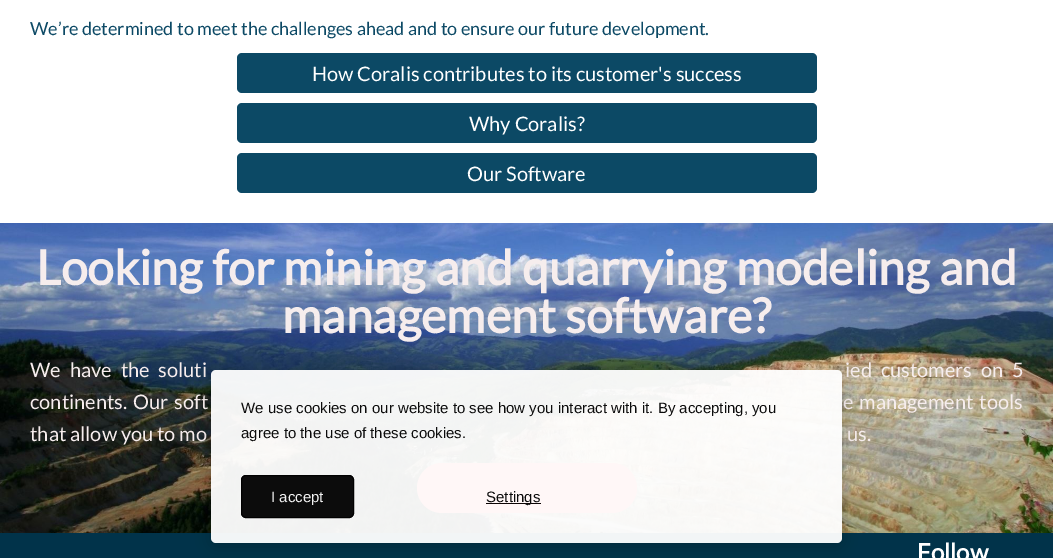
%!PS-Adobe-3.0
%%BoundingBox: 0 0 1053 558
%%LanguageLevel: 3
%%Pages: 1
%%EndComments
%%BeginProlog
/setink { 3 { 255 div 3 1 roll } repeat setrgbcolor } def
/usefont { [ exch dup neg 0 0 3 -1 roll 0 0 ] selectfont } def
/drawtext { setink usefont moveto show } def
/fillbox { setink rectfill } def
/setalpha { dup .setfillconstantalpha .setstrokeconstantalpha } def
/rrect { 5 dict begin { /r /h /w /y /x } { exch def } forall
  x r add y moveto x w add y 2 copy h add r arct x w add y h add x 1 index r arct
  x y h add x y r arct x y 2 copy exch w add exch r arct closepath end } def
/softshadow { 12 dict begin { /a /b /q /h /w /y /x } { exch def } forall gsave /was 0 def
  9 -2 -9 { dup b mul 4 div /e exch def 1 sub .425 mul 2.718 exch exp 1 add a .99 .min exch div /now exch def
    1 1 now sub 1 was sub div sub setalpha /was now def
    w h .min e 2 mul add 0 gt { x e sub y e sub w e 2 mul add h e 2 mul add
      q e add b .6 mul add w h .min 2 div e add .min 0 .max rrect fill } if } for grestore end } def
/drawimage { 5 dict begin { /h /w /y /x /name } { exch def } forall
  gsave x y translate w h scale
  w h 8 [w 0 0 h 0 0] name (r) file false 3 colorimage grestore end } def
%%EndProlog
%%BeginSetup
<< /PageSize [1053 558] /PageUsesTransparency true >> setpagedevice
%%EndSetup
%%Page: 1 1
0 .pushpdf14devicefilter
0 558 translate 1 -1 scale
4 setmiterlimit
0 0 1053 558 255 255 255 fillbox
(We’re determined to meet the challenges ahead and to ensure our future development.) 30 35 /Lato-Regular 18 12 73 101 drawtext
237 53 580 40 5 rrect fill
(How Coralis contributes to its customer's success) 312 81 /Lato-Regular 20 255 255 255 drawtext
12 73 101 setink
237 103 580 40 5 rrect fill
(Why Coralis?) 469 131 /Lato-Regular 20 255 255 255 drawtext
12 73 101 setink
237 153 580 40 5 rrect fill
(Our Software) 467 181 /Lato-Regular 20 255 255 255 drawtext
(assets/img1.rgb) 0 223 1053 310 drawimage
(Looking for mining and quarrying modeling and) 36 285 /Lato-Bold 48 246 237 237 drawtext
(management software?) 282 333 /Lato-Bold 48 246 237 237 drawtext
/Lato-Regular 20 usefont
30 377 moveto 5 0 32 (We have the soluti) widthshow
845 377 moveto 5 0 32 (ied customers on 5) widthshow
30 409 moveto 2 0 32 (continents. Our soft) widthshow
843 409 moveto 2 0 32 (e management tools) widthshow
(that allow you to mo) 30 441 /Lato-Regular 20 246 237 237 drawtext
(us.) 847 441 /Lato-Regular 20 246 237 237 drawtext
248 99 93 setink
417 463 220 50 25 rrect fill
0 533 1053 25 1 51 74 fillbox
(Follow) 917 561 /Lato-Bold 24 255 255 255 drawtext
gsave
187 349 moveto 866 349 lineto 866 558 lineto 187 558 lineto closepath 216 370 moveto 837 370 lineto 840 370 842 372 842 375 curveto 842 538 lineto 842 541 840 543 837 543 curveto 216 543 lineto 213 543 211 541 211 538 curveto 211 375 lineto 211 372 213 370 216 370 curveto closepath eoclip newpath
0 0 0 setink
211 373 631 173 5 7.5 0.19 softshadow
grestore
0.95 setalpha
211 370 631 173 5 rrect fill
1 setalpha
(We use cookies on our website to see how you interact with it. By accepting, you) 241 413 /LiberationSans-Regular 15 12 12 12 drawtext
(agree to the use of these cookies.) 241 438 /LiberationSans-Regular 15 12 12 12 drawtext
241 475 113 43 5 rrect fill
0.95 setalpha
0 0 0 setink
241.5 475.5 112 42 4.5 rrect stroke
1 setalpha
(I accept) 271 502 /LiberationSans-Regular 15 243 243 243 drawtext
486 503 55 1 12 5 5 fillbox
(Settings) 486 502 /LiberationSans-Regular 15 12 12 12 drawtext
.poppdf14devicefilter showpage
%%EOF
